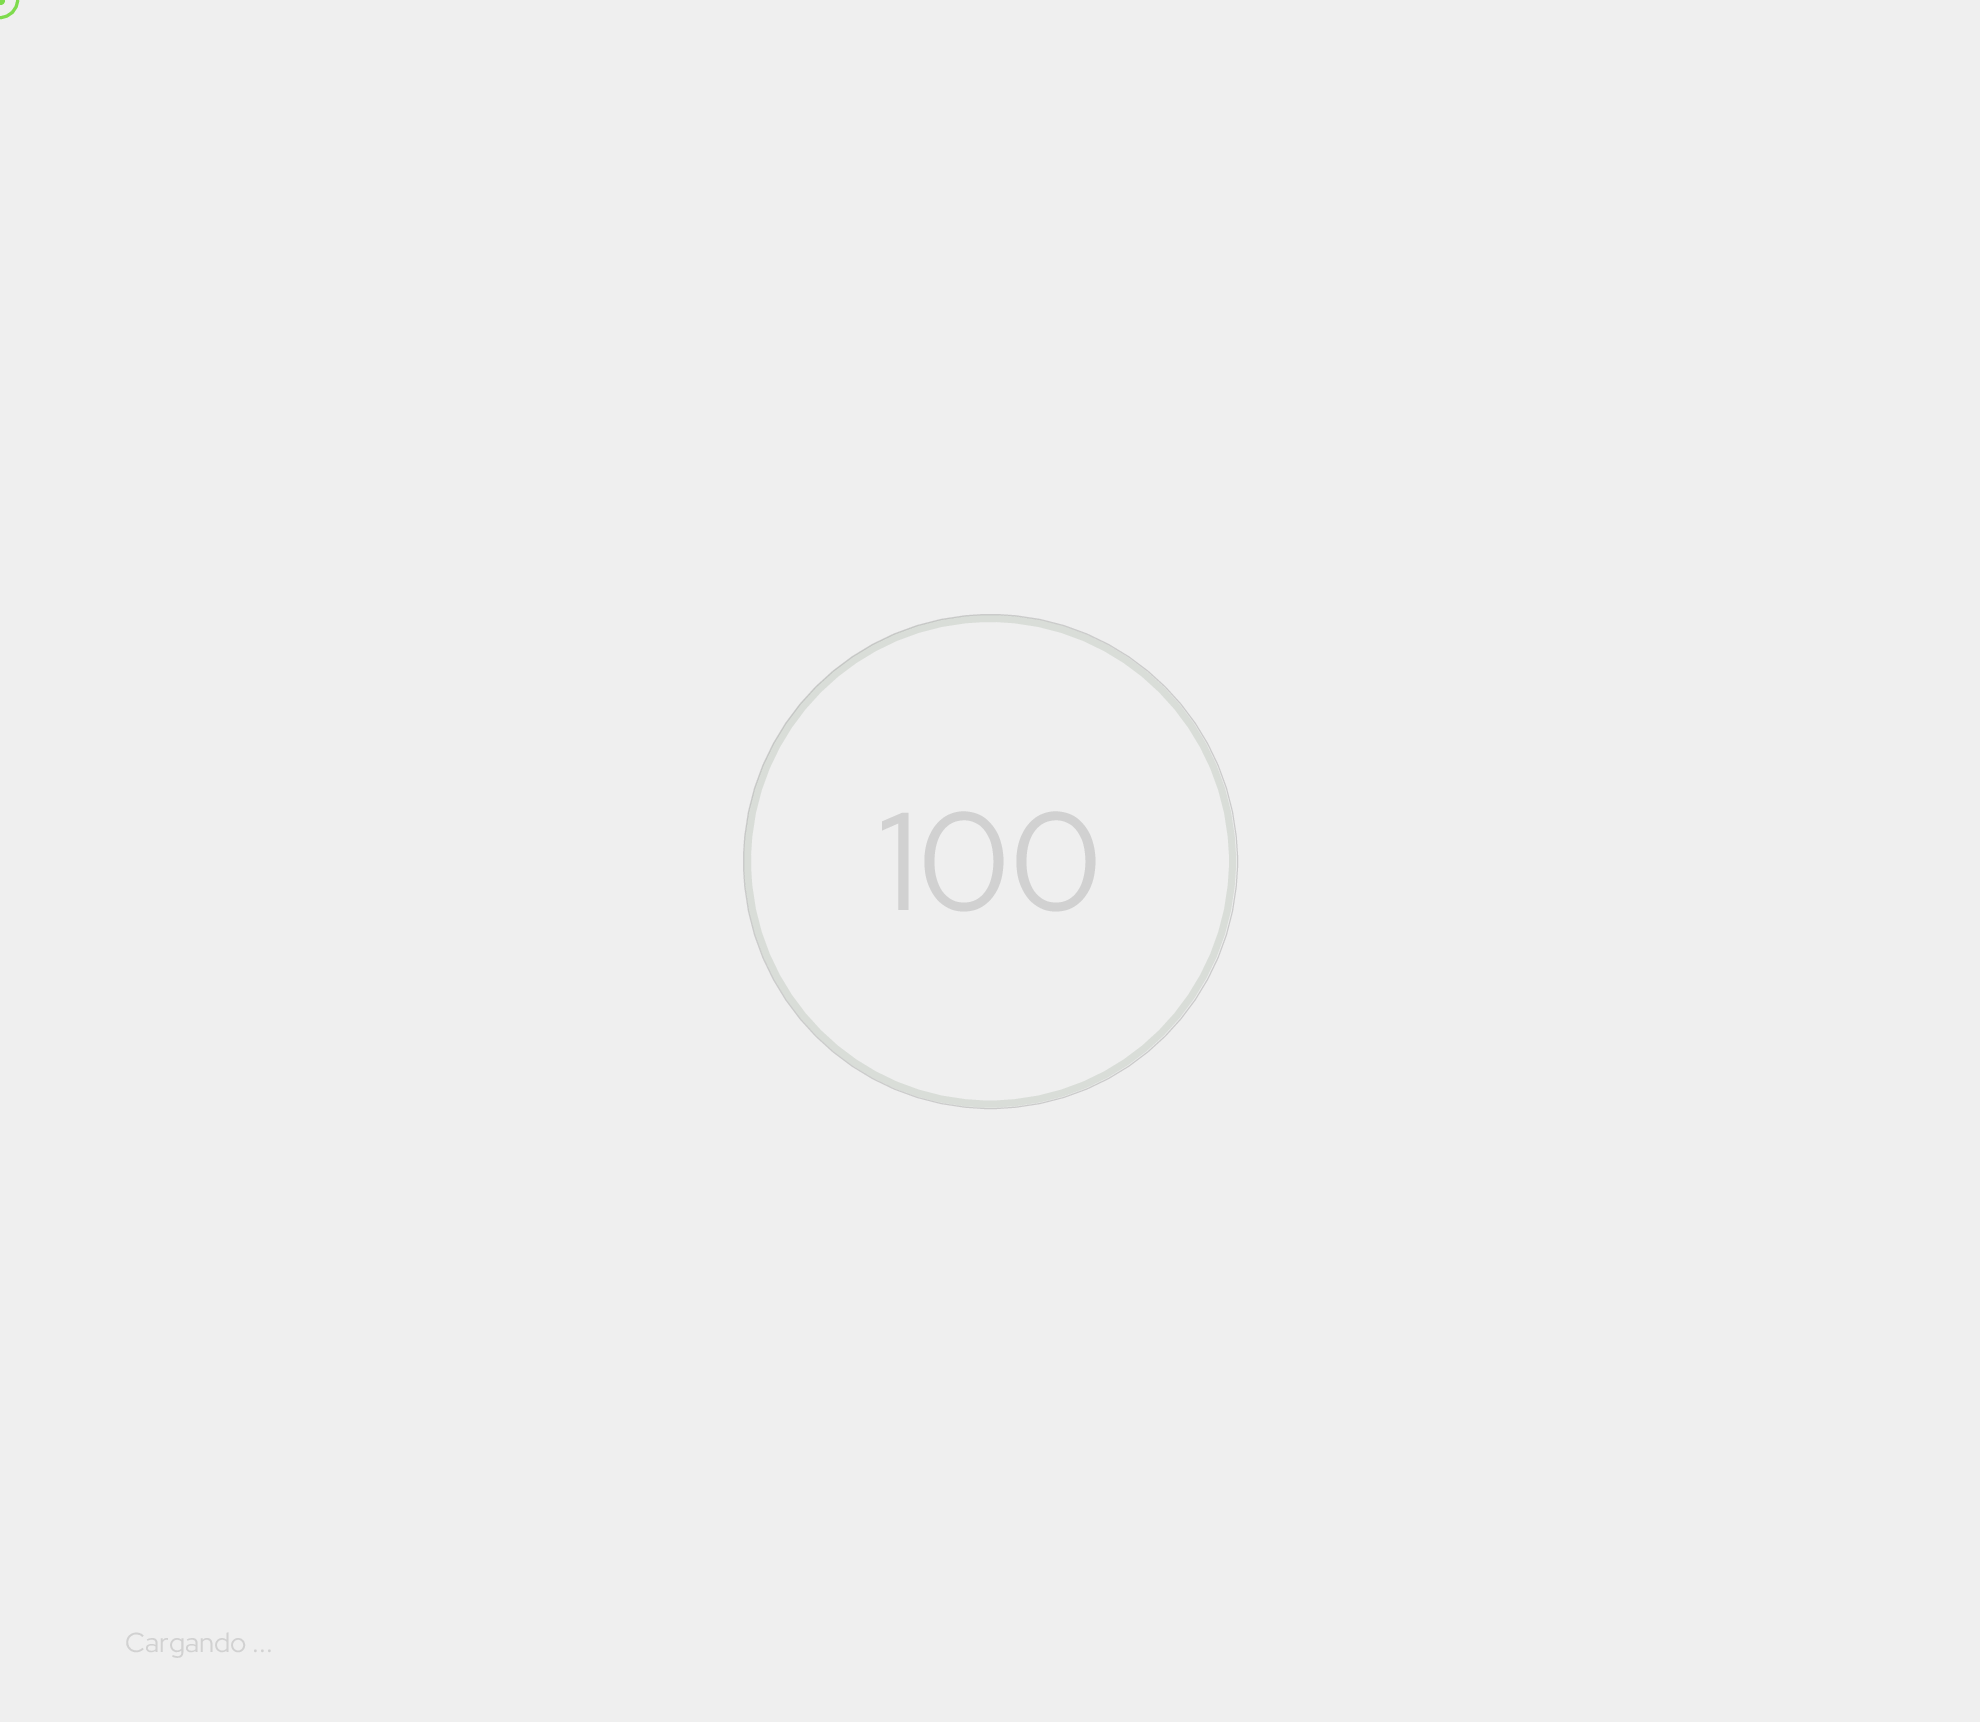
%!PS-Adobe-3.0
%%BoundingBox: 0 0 1980 1722
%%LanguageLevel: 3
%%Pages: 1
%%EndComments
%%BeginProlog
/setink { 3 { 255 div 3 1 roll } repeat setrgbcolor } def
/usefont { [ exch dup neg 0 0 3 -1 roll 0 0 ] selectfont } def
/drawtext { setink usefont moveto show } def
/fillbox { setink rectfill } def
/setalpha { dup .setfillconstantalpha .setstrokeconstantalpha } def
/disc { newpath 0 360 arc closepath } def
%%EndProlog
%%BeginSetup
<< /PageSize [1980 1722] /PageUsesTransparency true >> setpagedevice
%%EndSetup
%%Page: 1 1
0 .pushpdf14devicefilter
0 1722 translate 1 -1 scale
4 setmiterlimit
0 0 1980 1722 239 239 239 fillbox
126 219 77 setink
3 setlinewidth
0 0 17.5 disc stroke
0.5 0.5 4.5 disc fill
217 221 216 setink
6.9 setlinewidth
990 618.5 moveto 1124 618.5 1232.5 727.5 1232.5 861 curveto 1232.5 995 1124 1104 990 1104 curveto 856 1104 747.5 995 747.5 861 curveto 747.5 727.5 856 618.5 990 618.5 curveto stroke
0.15 setalpha
0 0 0 setink
1 setlinewidth
990.5 861.5 247 disc stroke
1 setalpha
(100) 878 910 /RedHatDisplay-Regular 139 209 209 209 drawtext
(Cargando ...) 125 1652 /RedHatDisplay-Regular 27.5 209 209 209 drawtext
.poppdf14devicefilter showpage
%%EOF
